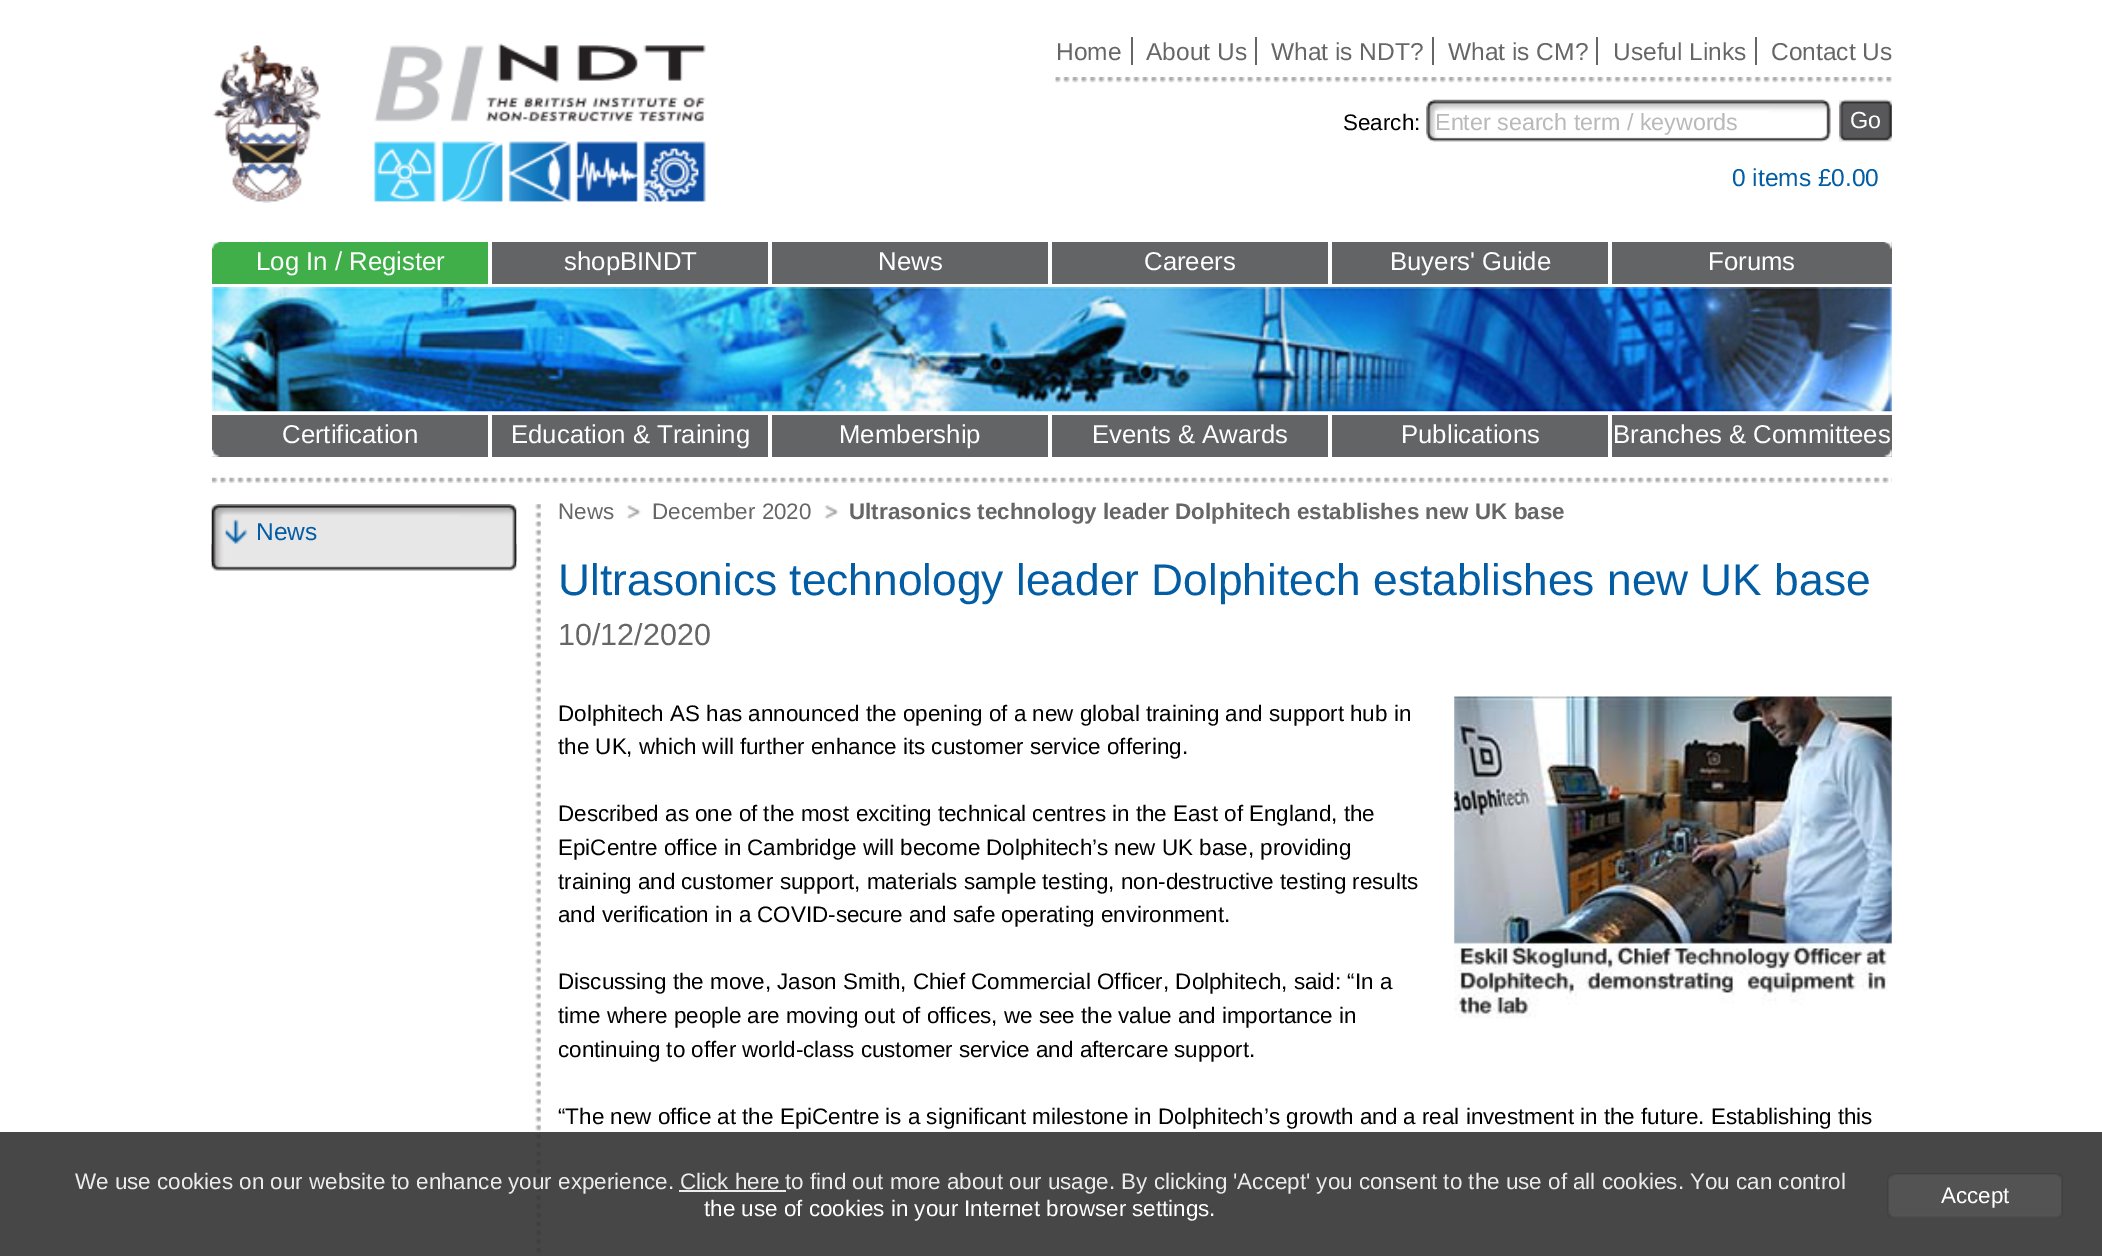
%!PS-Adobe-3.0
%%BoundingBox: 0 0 2102 1256
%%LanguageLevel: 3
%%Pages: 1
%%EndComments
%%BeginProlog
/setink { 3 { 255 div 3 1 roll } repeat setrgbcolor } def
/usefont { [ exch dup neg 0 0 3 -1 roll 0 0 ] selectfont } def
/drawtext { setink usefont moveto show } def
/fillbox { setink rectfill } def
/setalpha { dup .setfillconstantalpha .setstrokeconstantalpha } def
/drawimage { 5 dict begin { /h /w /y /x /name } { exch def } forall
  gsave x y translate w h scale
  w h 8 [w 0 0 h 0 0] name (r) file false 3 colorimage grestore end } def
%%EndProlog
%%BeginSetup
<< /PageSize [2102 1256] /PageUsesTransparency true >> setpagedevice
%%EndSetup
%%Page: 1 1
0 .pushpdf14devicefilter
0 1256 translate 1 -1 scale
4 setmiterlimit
0 0 2102 1256 255 255 255 fillbox
(assets/img1.rgb) 211 477 1681 6 drawimage
(assets/img2.rgb) 213 43 493 160 drawimage
(assets/img3.rgb) 1055 77 837 6 drawimage
(Home) 1056 60 /LiberationSans-Regular 24.5 102 102 102 drawtext
(About Us) 1146 60 /LiberationSans-Regular 24.5 102 102 102 drawtext
1131 37 2 28 102 102 102 fillbox
(What is NDT?) 1271 60 /LiberationSans-Regular 24.5 102 102 102 drawtext
1255 37 2 28 102 102 102 fillbox
(What is CM?) 1448 60 /LiberationSans-Regular 24.5 102 102 102 drawtext
1432 37 2 28 102 102 102 fillbox
(Useful Links) 1613 60 /LiberationSans-Regular 24.5 102 102 102 drawtext
1596 37 2 28 102 102 102 fillbox
(Contact Us) 1771 60 /LiberationSans-Regular 24.5 102 102 102 drawtext
1755 37 2 28 102 102 102 fillbox
(Search:) 1343 130 /LiberationSans-Regular 22.4 0 0 0 drawtext
(assets/img4.rgb) 1426 99 405 43 drawimage
(Enter search term / keywords) 1435 130 /LiberationSans-Regular 23.3 185 185 185 drawtext
1839 100 53 42 239 239 239 fillbox
(assets/img5.rgb) 1839 99 53 43 drawimage
(Go) 1850 128 /LiberationSans-Regular 23.3 255 255 255 drawtext
(0 items £0.00) 1732 186 /LiberationSans-Regular 24.5 2 93 164 drawtext
(assets/img6.rgb) 211 287 1681 125 drawimage
212 242 276 42 64 175 73 fillbox
(assets/img7.rgb) 212 242 7 7 drawimage
1612 242 280 42 99 100 102 fillbox
(assets/img8.rgb) 1884 242 8 7 drawimage
(Log In / Register) 256 270 /LiberationSans-Regular 25.75 255 255 255 drawtext
492 242 276 42 99 100 102 fillbox
(shopBINDT) 564 270 /LiberationSans-Regular 25.75 255 255 255 drawtext
772 242 276 42 99 100 102 fillbox
(News) 878 270 /LiberationSans-Regular 25.75 255 255 255 drawtext
1052 242 276 42 99 100 102 fillbox
(Careers) 1144 270 /LiberationSans-Regular 25.75 255 255 255 drawtext
1332 242 276 42 99 100 102 fillbox
(Buyers' Guide) 1390 270 /LiberationSans-Regular 25.75 255 255 255 drawtext
(Forums) 1708 270 /LiberationSans-Regular 25.75 255 255 255 drawtext
212 415 276 42 99 100 102 fillbox
(Certification) 282 443 /LiberationSans-Regular 25.75 255 255 255 drawtext
492 415 276 42 99 100 102 fillbox
(Education & Training) 511 443 /LiberationSans-Regular 25.75 255 255 255 drawtext
772 415 276 42 99 100 102 fillbox
(Membership) 839 443 /LiberationSans-Regular 25.75 255 255 255 drawtext
1052 415 276 42 99 100 102 fillbox
(Events & Awards) 1092 443 /LiberationSans-Regular 25.75 255 255 255 drawtext
1332 415 276 42 99 100 102 fillbox
(Publications) 1401 443 /LiberationSans-Regular 25.75 255 255 255 drawtext
1612 415 280 42 99 100 102 fillbox
(Branches & Committees) 1613 443 /LiberationSans-Regular 25.75 255 255 255 drawtext
(assets/img9.rgb) 212 449 7 8 drawimage
(assets/img10.rgb) 1884 449 8 8 drawimage
(assets/img11.rgb) 535 504 6 750 drawimage
(assets/img12.rgb) 211 504 306 58 drawimage
(News) 256 540 /LiberationSans-Regular 24.5 2 93 164 drawtext
(assets/img13.rgb) 211 544 306 27 drawimage
(News) 558 519 /LiberationSans-Regular 22.4 102 102 102 drawtext
(assets/img14.rgb) 626 505 15 14 drawimage
(December 2020) 652 519 /LiberationSans-Regular 22.4 102 102 102 drawtext
(assets/img15.rgb) 824 505 15 14 drawimage
(Ultrasonics technology leader Dolphitech establishes new UK base) 849 519 /LiberationSans-Bold 22.4 102 102 102 drawtext
(Ultrasonics technology leader Dolphitech establishes new UK base) 558 595 /LiberationSans-Regular 44.3 2 93 164 drawtext
(10/12/2020) 558 645 /LiberationSans-Regular 30.5 102 102 102 drawtext
(Dolphitech AS has announced the opening of a new global training and support hub in) 558 721 /LiberationSans-Regular 22.4 0 0 0 drawtext
(assets/img16.rgb) 1454 696 438 323 drawimage
(the UK, which will further enhance its customer service offering.) 558 754 /LiberationSans-Regular 22.4 0 0 0 drawtext
(Described as one of the most exciting technical centres in the East of England, the) 558 821 /LiberationSans-Regular 22.4 0 0 0 drawtext
(EpiCentre office in Cambridge will become Dolphitech’s new UK base, providing) 558 855 /LiberationSans-Regular 22.4 0 0 0 drawtext
(training and customer support, materials sample testing, non-destructive testing results) 558 889 /LiberationSans-Regular 22.4 0 0 0 drawtext
(and verification in a COVID-secure and safe operating environment.) 558 922 /LiberationSans-Regular 22.4 0 0 0 drawtext
(Discussing the move, Jason Smith, Chief Commercial Officer, Dolphitech, said: “In a) 558 989 /LiberationSans-Regular 22.4 0 0 0 drawtext
(time where people are moving out of offices, we see the value and importance in) 558 1023 /LiberationSans-Regular 22.4 0 0 0 drawtext
(continuing to offer world-class customer service and aftercare support.) 558 1057 /LiberationSans-Regular 22.4 0 0 0 drawtext
(“The new office at the EpiCentre is a significant milestone in Dolphitech’s growth and a real investment in the future. Establishing this) 558 1124 /LiberationSans-Regular 22.4 0 0 0 drawtext
0.9 setalpha
0 1132 2102 124 51 51 51 fillbox
1 setalpha
(We use cookies on our website to enhance your experience. Click here) 75 1189 /LiberationSans-Regular 22.4 236 236 236 drawtext
0.9 setalpha
679 1190 107 2 255 255 255 fillbox
1 setalpha
(to find out more about our usage. By clicking 'Accept' you consent to the use of all cookies. You can control) 785 1189 /LiberationSans-Regular 22.4 236 236 236 drawtext
(the use of cookies in your Internet browser settings.) 704 1216 /LiberationSans-Regular 22.4 255 255 255 drawtext
(assets/img17.rgb) 1887 1173 176 45 drawimage
(Accept) 1941 1203 /LiberationSans-Regular 22.4 255 255 255 drawtext
.poppdf14devicefilter showpage
%%EOF
